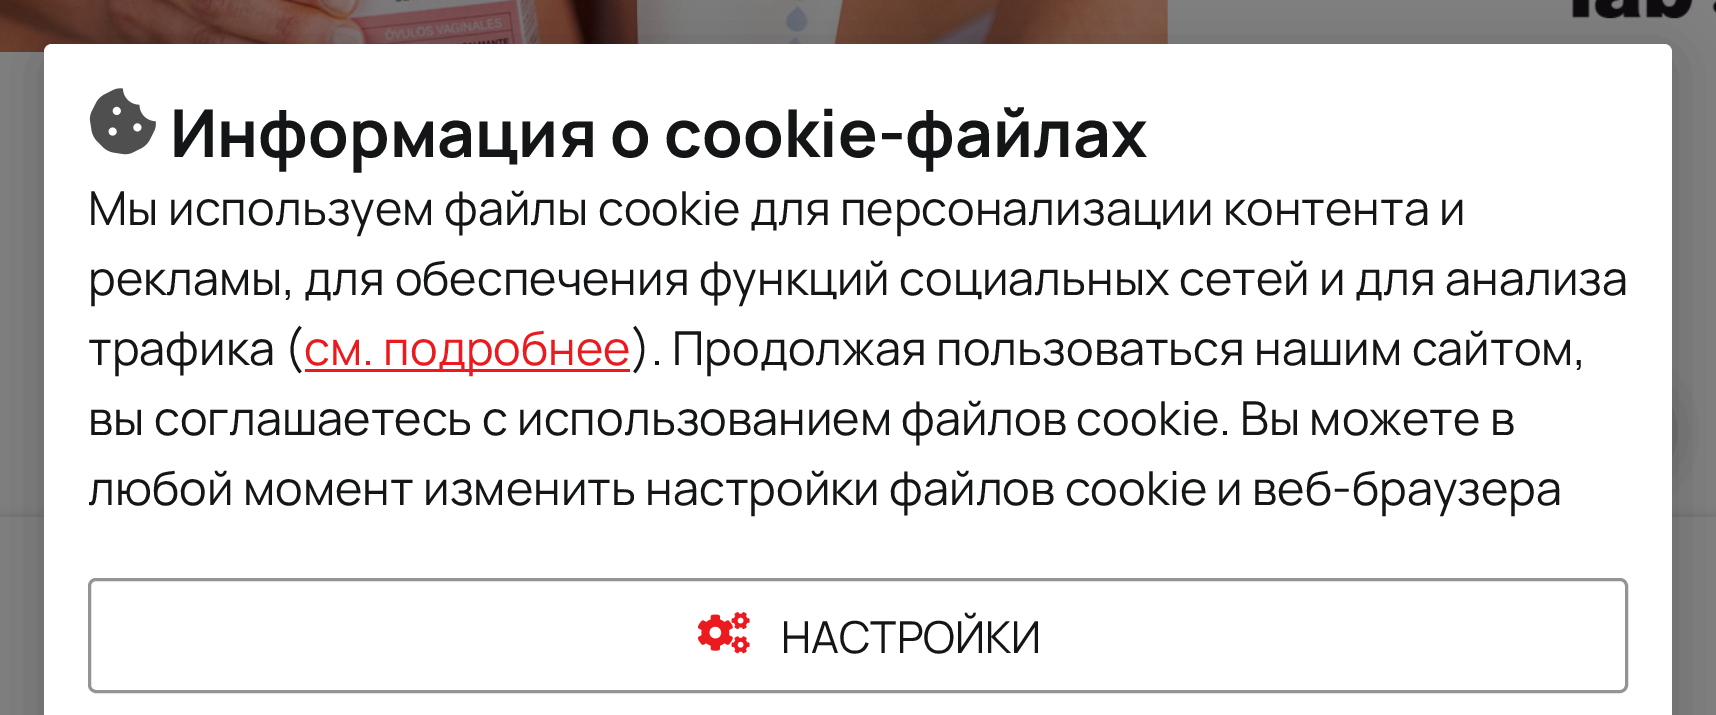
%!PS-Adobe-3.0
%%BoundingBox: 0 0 1716 715
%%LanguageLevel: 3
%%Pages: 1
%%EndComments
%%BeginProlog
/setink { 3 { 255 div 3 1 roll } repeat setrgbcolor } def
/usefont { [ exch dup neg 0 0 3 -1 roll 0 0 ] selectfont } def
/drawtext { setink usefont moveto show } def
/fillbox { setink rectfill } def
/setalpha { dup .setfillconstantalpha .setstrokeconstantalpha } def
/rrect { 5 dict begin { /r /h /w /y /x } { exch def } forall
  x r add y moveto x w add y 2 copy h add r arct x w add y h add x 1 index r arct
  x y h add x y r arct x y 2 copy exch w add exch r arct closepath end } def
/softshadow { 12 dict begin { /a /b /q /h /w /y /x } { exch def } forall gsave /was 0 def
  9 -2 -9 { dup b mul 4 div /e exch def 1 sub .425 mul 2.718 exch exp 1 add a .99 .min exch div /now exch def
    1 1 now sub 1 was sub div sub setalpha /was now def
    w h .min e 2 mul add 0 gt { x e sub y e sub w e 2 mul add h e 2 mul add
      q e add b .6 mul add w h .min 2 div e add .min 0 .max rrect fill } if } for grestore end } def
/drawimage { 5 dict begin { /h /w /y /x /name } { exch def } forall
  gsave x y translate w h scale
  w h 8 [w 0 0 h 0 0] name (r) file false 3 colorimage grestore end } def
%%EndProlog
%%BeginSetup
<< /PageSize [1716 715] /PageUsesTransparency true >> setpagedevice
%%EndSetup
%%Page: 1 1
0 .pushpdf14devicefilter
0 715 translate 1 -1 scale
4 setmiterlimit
0 0 1716 715 128 128 128 fillbox
(assets/img1.rgb) 0 0 1716 52 drawimage
39 39 39 setink
0 517 1716 198 0 5.5 0.2 softshadow
0 517 1716 198 128 128 128 fillbox
40 40 40 setink
1579 396 71 72 35.5 22 1 softshadow
19 21 22 setink
44 55 1628 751 8 27.5 0.25 softshadow
255 255 255 setink
52 44 moveto 1664 44 lineto 1668.5 44 1672 47.5 1672 52 curveto 1672 715 lineto 44 715 lineto 44 52 lineto 44 47.5 47.5 44 52 44 curveto closepath fill
(assets/img2.rgb) 89 88 67 67 drawimage
(Информация о cookie-файлах) 170 157 /Manrope-Bold 66 19 21 22 drawtext
(Мы используем файлы cookie для персонализации контента и) 88 225 /Manrope-Regular 46.75 19 21 22 drawtext
(рекламы, для обеспечения функций социальных сетей и для анализа) 88 295 /Manrope-Regular 46.75 19 21 22 drawtext
(трафика \() 88 365 /Manrope-Regular 46.75 19 21 22 drawtext
305 369 325 3 234 26 30 fillbox
(см. подробнее) 304 365 /Manrope-Regular 46.75 234 26 30 drawtext
(\). Продолжая пользоваться нашим сайтом,) 631 365 /Manrope-Regular 46.75 19 21 22 drawtext
(вы соглашаетесь с использованием файлов cookie. Вы можете в) 88 435 /Manrope-Regular 46.75 19 21 22 drawtext
(любой момент изменить настройки файлов cookie и веб-браузера) 88 505 /Manrope-Regular 46.75 19 21 22 drawtext
148 148 148 setink
3 setlinewidth
89.5 579.5 1537 112 6.5 rrect stroke
(assets/img3.rgb) 697 612 53 42 drawimage
(НАСТРОЙКИ) 781 653 /Manrope-Regular 44 19 21 22 drawtext
.poppdf14devicefilter showpage
%%EOF
